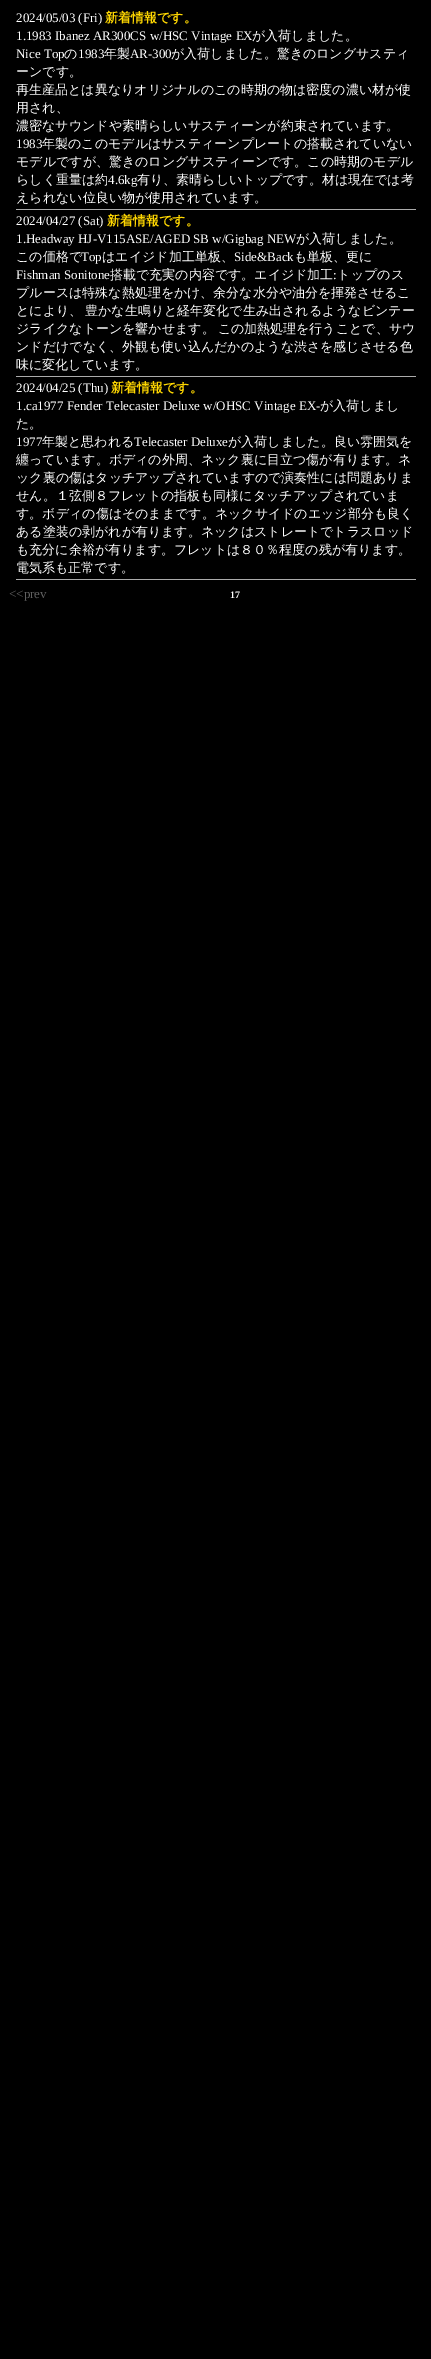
%!PS-Adobe-3.0
%%BoundingBox: 0 0 431 2359
%%LanguageLevel: 3
%%Pages: 1
%%EndComments
%%BeginProlog
/setink { 3 { 255 div 3 1 roll } repeat setrgbcolor } def
/usefont { [ exch dup neg 0 0 3 -1 roll 0 0 ] selectfont } def
/drawtext { setink usefont moveto show } def
/fillbox { setink rectfill } def
%%EndProlog
%%BeginSetup
<< /PageSize [431 2359] >> setpagedevice
%%EndSetup
%%Page: 1 1
0 2359 translate 1 -1 scale
4 setmiterlimit
0 0 431 2359 0 0 0 fillbox
(2024/05/03 \(Fri\)) 16 22 /LiberationSerif-Regular 13 255 255 255 drawtext
(新着情報です。) 105 22 /WenQuanYiZenHei-Bold 13 255 215 0 drawtext
(1.1983 Ibanez AR300CS w/HSC Vintage EX) 16 40 /LiberationSerif-Regular 13 255 255 255 drawtext
(が入荷しました。) 252 40 /WenQuanYiZenHei-Medium 13 255 255 255 drawtext
(Nice Top) 16 58 /LiberationSerif-Regular 13 255 255 255 drawtext
(の) 64 58 /WenQuanYiZenHei-Medium 13 255 255 255 drawtext
(1983) 78 58 /LiberationSerif-Regular 13 255 255 255 drawtext
(年製) 104 58 /WenQuanYiZenHei-Medium 13 255 255 255 drawtext
(AR-300) 130 58 /LiberationSerif-Regular 13 255 255 255 drawtext
(が入荷しました。驚きのロングサスティ) 171 58 /WenQuanYiZenHei-Medium 13 255 255 255 drawtext
(ーンです。) 16 76 /WenQuanYiZenHei-Medium 13 255 255 255 drawtext
(再生産品とは異なりオリジナルのこの時期の物は密度の濃い材が使) 16 94 /WenQuanYiZenHei-Medium 13 255 255 255 drawtext
(用され、) 16 112 /WenQuanYiZenHei-Medium 13 255 255 255 drawtext
(濃密なサウンドや素晴らしいサスティーンが約束されています。) 16 130 /WenQuanYiZenHei-Medium 13 255 255 255 drawtext
(1983) 16 148 /LiberationSerif-Regular 13 255 255 255 drawtext
(年製のこのモデルはサスティーンプレートの搭載されていない) 42 148 /WenQuanYiZenHei-Medium 13 255 255 255 drawtext
(モデルですが、驚きのロングサスティーンです。この時期のモデル) 16 166 /WenQuanYiZenHei-Medium 13 255 255 255 drawtext
(らしく重量は約) 16 184 /WenQuanYiZenHei-Medium 13 255 255 255 drawtext
(4.6kg) 108 184 /LiberationSerif-Regular 13 255 255 255 drawtext
(有り、素晴らしいトップです。材は現在では考) 137 184 /WenQuanYiZenHei-Medium 13 255 255 255 drawtext
(えられない位良い物が使用されています。) 16 202 /WenQuanYiZenHei-Medium 13 255 255 255 drawtext
16 209 400 1 171 171 171 fillbox
(2024/04/27 \(Sat\)) 16 225 /LiberationSerif-Regular 13 255 255 255 drawtext
(新着情報です。) 107 225 /WenQuanYiZenHei-Bold 13 255 215 0 drawtext
(1.Headway HJ-V115ASE/AGED SB w/Gigbag NEW) 16 243 /LiberationSerif-Regular 13 255 255 255 drawtext
(が入荷しました。) 296 243 /WenQuanYiZenHei-Medium 13 255 255 255 drawtext
(この価格で) 16 261 /WenQuanYiZenHei-Medium 13 255 255 255 drawtext
(Top) 81 261 /LiberationSerif-Regular 13 255 255 255 drawtext
(はエイジド加工単板、) 102 261 /WenQuanYiZenHei-Medium 13 255 255 255 drawtext
(Side&Back) 234 261 /LiberationSerif-Regular 13 255 255 255 drawtext
(も単板、更に) 294 261 /WenQuanYiZenHei-Medium 13 255 255 255 drawtext
(Fishman Sonitone) 16 279 /LiberationSerif-Regular 13 255 255 255 drawtext
(搭載で充実の内容です。エイジド加工 トップのス) 110 279 /WenQuanYiZenHei-Medium 13 255 255 255 drawtext
(:) 333 279 /LiberationSerif-Regular 13 255 255 255 drawtext
(プルースは特殊な熱処理をかけ、余分な水分や油分を揮発させるこ) 16 297 /WenQuanYiZenHei-Medium 13 255 255 255 drawtext
16 315 moveto -1 0 32 (とにより、 豊かな生鳴りと経年変化で生み出されるようなビンテー) widthshow
16 333 moveto -1 0 32 (ジライクなトーンを響かせます。 この加熱処理を行うことで、サウ) widthshow
(ンドだけでなく、外観も使い込んだかのような渋さを感じさせる色) 16 351 /WenQuanYiZenHei-Medium 13 255 255 255 drawtext
(味に変化しています。) 16 369 /WenQuanYiZenHei-Medium 13 255 255 255 drawtext
16 376 400 1 171 171 171 fillbox
(2024/04/25 \(Thu\)) 16 392 /LiberationSerif-Regular 13 255 255 255 drawtext
(新着情報です。) 111 392 /WenQuanYiZenHei-Bold 13 255 215 0 drawtext
(1.ca1977 Fender Telecaster Deluxe w/OHSC Vintage EX-) 16 410 /LiberationSerif-Regular 13 255 255 255 drawtext
(が入荷しまし) 320 410 /WenQuanYiZenHei-Medium 13 255 255 255 drawtext
(た。) 16 428 /WenQuanYiZenHei-Medium 13 255 255 255 drawtext
(1977) 16 446 /LiberationSerif-Regular 13 255 255 255 drawtext
(年製と思われる) 42 446 /WenQuanYiZenHei-Medium 13 255 255 255 drawtext
(Telecaster Deluxe) 134 446 /LiberationSerif-Regular 13 255 255 255 drawtext
(が入荷しました。良い雰囲気を) 228 446 /WenQuanYiZenHei-Medium 13 255 255 255 drawtext
(纏っています。ボディの外周、ネック裏に目立つ傷が有ります。ネ) 16 464 /WenQuanYiZenHei-Medium 13 255 255 255 drawtext
(ック裏の傷はタッチアップされていますので演奏性には問題ありま) 16 482 /WenQuanYiZenHei-Medium 13 255 255 255 drawtext
(せん。１弦側８フレットの指板も同様にタッチアップされていま) 16 500 /WenQuanYiZenHei-Medium 13 255 255 255 drawtext
(す。ボディの傷はそのままです。ネックサイドのエッジ部分も良く) 16 518 /WenQuanYiZenHei-Medium 13 255 255 255 drawtext
(ある塗装の剥がれが有ります。ネックはストレートでトラスロッド) 16 536 /WenQuanYiZenHei-Medium 13 255 255 255 drawtext
(も充分に余裕が有ります。フレットは８０％程度の残が有ります。) 16 554 /WenQuanYiZenHei-Medium 13 255 255 255 drawtext
(電気系も正常です。) 16 572 /WenQuanYiZenHei-Medium 13 255 255 255 drawtext
16 579 400 1 171 171 171 fillbox
(<<prev) 9 598 /LiberationSerif-Regular 13 97 97 97 drawtext
(17) 230 598 /LiberationSerif-Bold 10 255 255 255 drawtext
showpage
%%EOF
